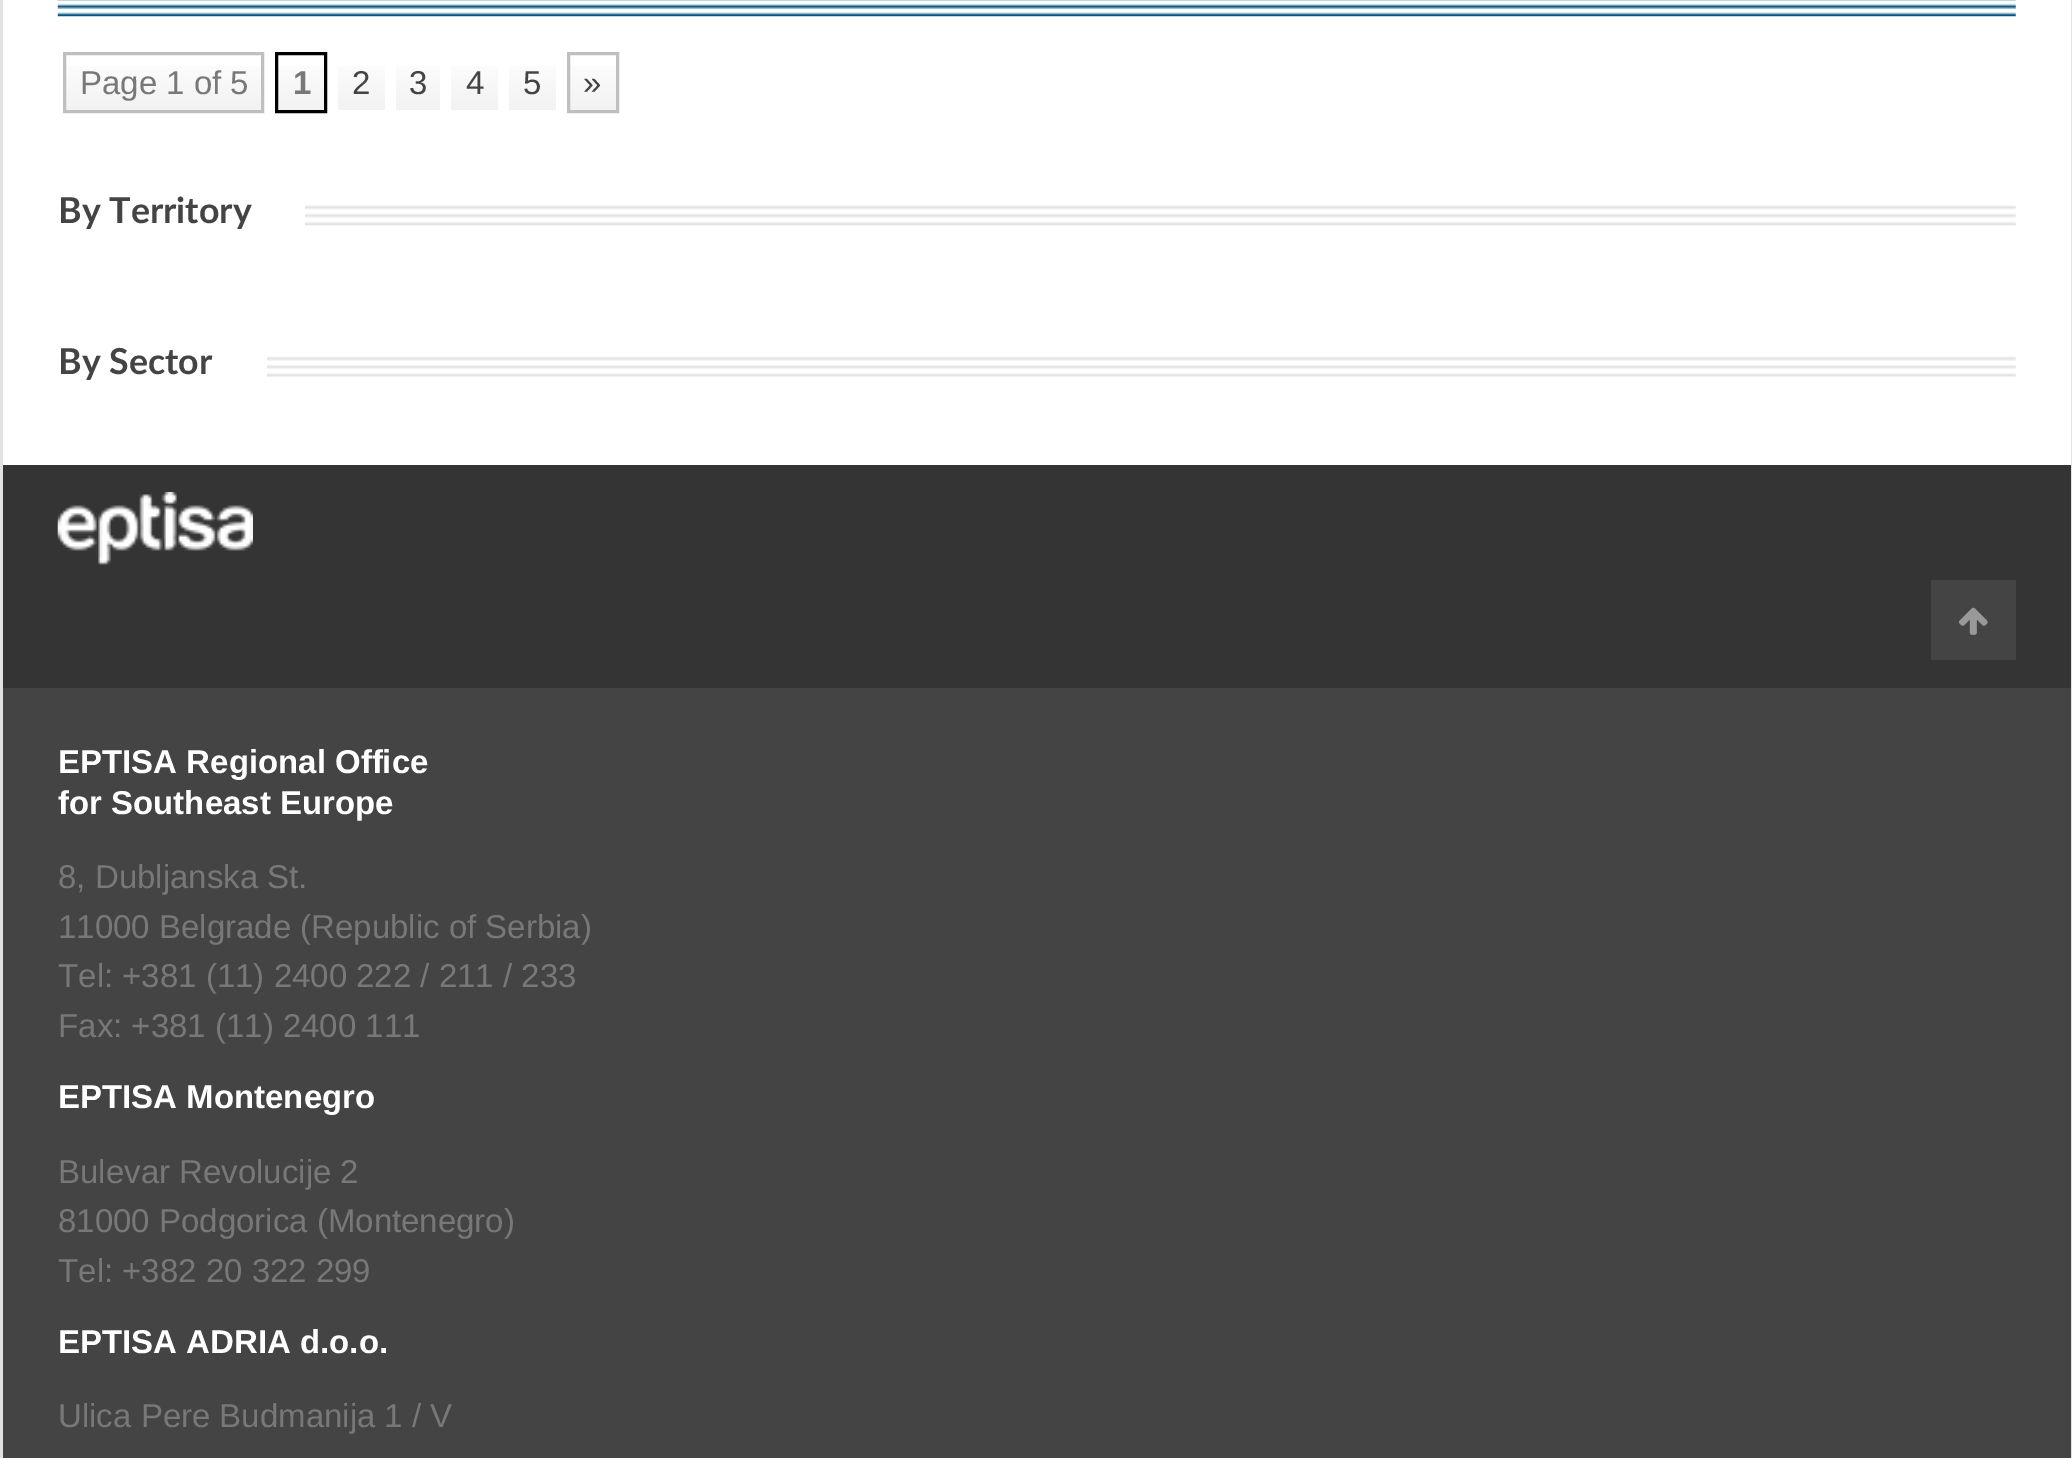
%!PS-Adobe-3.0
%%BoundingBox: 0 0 2072 1458
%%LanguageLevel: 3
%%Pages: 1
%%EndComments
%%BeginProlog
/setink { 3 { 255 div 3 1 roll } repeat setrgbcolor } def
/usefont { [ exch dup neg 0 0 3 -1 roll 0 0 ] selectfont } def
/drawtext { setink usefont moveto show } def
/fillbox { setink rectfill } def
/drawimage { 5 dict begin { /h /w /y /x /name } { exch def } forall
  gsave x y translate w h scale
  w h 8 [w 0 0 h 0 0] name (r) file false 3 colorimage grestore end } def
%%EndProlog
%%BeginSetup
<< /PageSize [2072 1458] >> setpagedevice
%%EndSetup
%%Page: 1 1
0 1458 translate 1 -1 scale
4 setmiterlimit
0 0 2072 1458 226 226 226 fillbox
3 0 2068 465 255 255 255 fillbox
(assets/img1.rgb) 57 0 1959 17 drawimage
gsave 66 66 moveto 261 66 lineto 261 110 lineto 66 110 lineto closepath clip newpath
<< /ShadingType 2 /ColorSpace /DeviceRGB /Coords [164 110 164 55] /Extend [true true] /Function << /FunctionType 2 /Domain [0 1] /C0 [0.949 0.949 0.949] /C1 [1 1 1] /N 1 >> >> shfill grestore
191 191 191 setink
3 setlinewidth
64.5 53.5 198 58 rectstroke
(Page 1 of 5) 80 94 /LiberationSans-Regular 33 120 120 120 drawtext
gsave 278 66 moveto 324 66 lineto 324 110 lineto 278 110 lineto closepath clip newpath
<< /ShadingType 2 /ColorSpace /DeviceRGB /Coords [301 110 301 55] /Extend [true true] /Function << /FunctionType 2 /Domain [0 1] /C0 [0.949 0.949 0.949] /C1 [1 1 1] /N 1 >> >> shfill grestore
0 0 0 setink
276.5 53.5 49 58 rectstroke
(1) 293 94 /LiberationSans-Bold 33 120 120 120 drawtext
gsave 338 66 moveto 385 66 lineto 385 110 lineto 338 110 lineto closepath clip newpath
<< /ShadingType 2 /ColorSpace /DeviceRGB /Coords [362 110 362 55] /Extend [true true] /Function << /FunctionType 2 /Domain [0 1] /C0 [0.949 0.949 0.949] /C1 [1 1 1] /N 1 >> >> shfill grestore
(2) 352 94 /LiberationSans-Regular 33 68 68 68 drawtext
gsave 396 66 moveto 440 66 lineto 440 110 lineto 396 110 lineto closepath clip newpath
<< /ShadingType 2 /ColorSpace /DeviceRGB /Coords [418 110 418 55] /Extend [true true] /Function << /FunctionType 2 /Domain [0 1] /C0 [0.949 0.949 0.949] /C1 [1 1 1] /N 1 >> >> shfill grestore
(3) 409 94 /LiberationSans-Regular 33 68 68 68 drawtext
gsave 451 66 moveto 498 66 lineto 498 110 lineto 451 110 lineto closepath clip newpath
<< /ShadingType 2 /ColorSpace /DeviceRGB /Coords [474 110 474 55] /Extend [true true] /Function << /FunctionType 2 /Domain [0 1] /C0 [0.949 0.949 0.949] /C1 [1 1 1] /N 1 >> >> shfill grestore
(4) 466 94 /LiberationSans-Regular 33 68 68 68 drawtext
gsave 509 66 moveto 556 66 lineto 556 110 lineto 509 110 lineto closepath clip newpath
<< /ShadingType 2 /ColorSpace /DeviceRGB /Coords [532 110 532 55] /Extend [true true] /Function << /FunctionType 2 /Domain [0 1] /C0 [0.949 0.949 0.949] /C1 [1 1 1] /N 1 >> >> shfill grestore
(5) 523 94 /LiberationSans-Regular 33 68 68 68 drawtext
gsave 570 66 moveto 616 66 lineto 616 110 lineto 570 110 lineto closepath clip newpath
<< /ShadingType 2 /ColorSpace /DeviceRGB /Coords [593 110 593 55] /Extend [true true] /Function << /FunctionType 2 /Domain [0 1] /C0 [0.949 0.949 0.949] /C1 [1 1 1] /N 1 >> >> shfill grestore
191 191 191 setink
568.5 53.5 49 58 rectstroke
(») 583 94 /LiberationSans-Regular 33 68 68 68 drawtext
(assets/img2.rgb) 57 205 1959 21 drawimage
58 205 247 21 255 255 255 fillbox
(By Territory) 58 223 /Lato-Bold 35.75 68 68 68 drawtext
(assets/img3.rgb) 57 356 1959 21 drawimage
58 356 209 21 255 255 255 fillbox
(By Sector) 58 374 /Lato-Bold 35.75 68 68 68 drawtext
3 465 2068 223 52 52 52 fillbox
(assets/img4.rgb) 57 492 196 73 drawimage
1931 580 85 80 68 68 68 fillbox
(assets/img5.rgb) 1959 607 29 28 drawimage
3 688 2068 770 68 68 68 fillbox
(EPTISA Regional Office) 58 773 /LiberationSans-Bold 33 255 255 255 drawtext
(for Southeast Europe) 58 814 /LiberationSans-Bold 33 255 255 255 drawtext
(8, Dubljanska St.) 58 888 /LiberationSans-Regular 33 120 120 120 drawtext
(11000 Belgrade \(Republic of Serbia\)) 58 938 /LiberationSans-Regular 33 120 120 120 drawtext
(Tel: +381 \(11\) 2400 222 / 211 / 233) 58 987 /LiberationSans-Regular 33 120 120 120 drawtext
(Fax: +381 \(11\) 2400 111) 58 1037 /LiberationSans-Regular 33 120 120 120 drawtext
(EPTISA Montenegro) 58 1108 /LiberationSans-Bold 33 255 255 255 drawtext
(Bulevar Revolucije 2) 58 1183 /LiberationSans-Regular 33 120 120 120 drawtext
(81000 Podgorica \(Montenegro\)) 58 1232 /LiberationSans-Regular 33 120 120 120 drawtext
(Tel: +382 20 322 299) 58 1282 /LiberationSans-Regular 33 120 120 120 drawtext
(EPTISA ADRIA d.o.o.) 58 1353 /LiberationSans-Bold 33 255 255 255 drawtext
(Ulica Pere Budmanija 1 / V) 58 1427 /LiberationSans-Regular 33 120 120 120 drawtext
showpage
%%EOF
